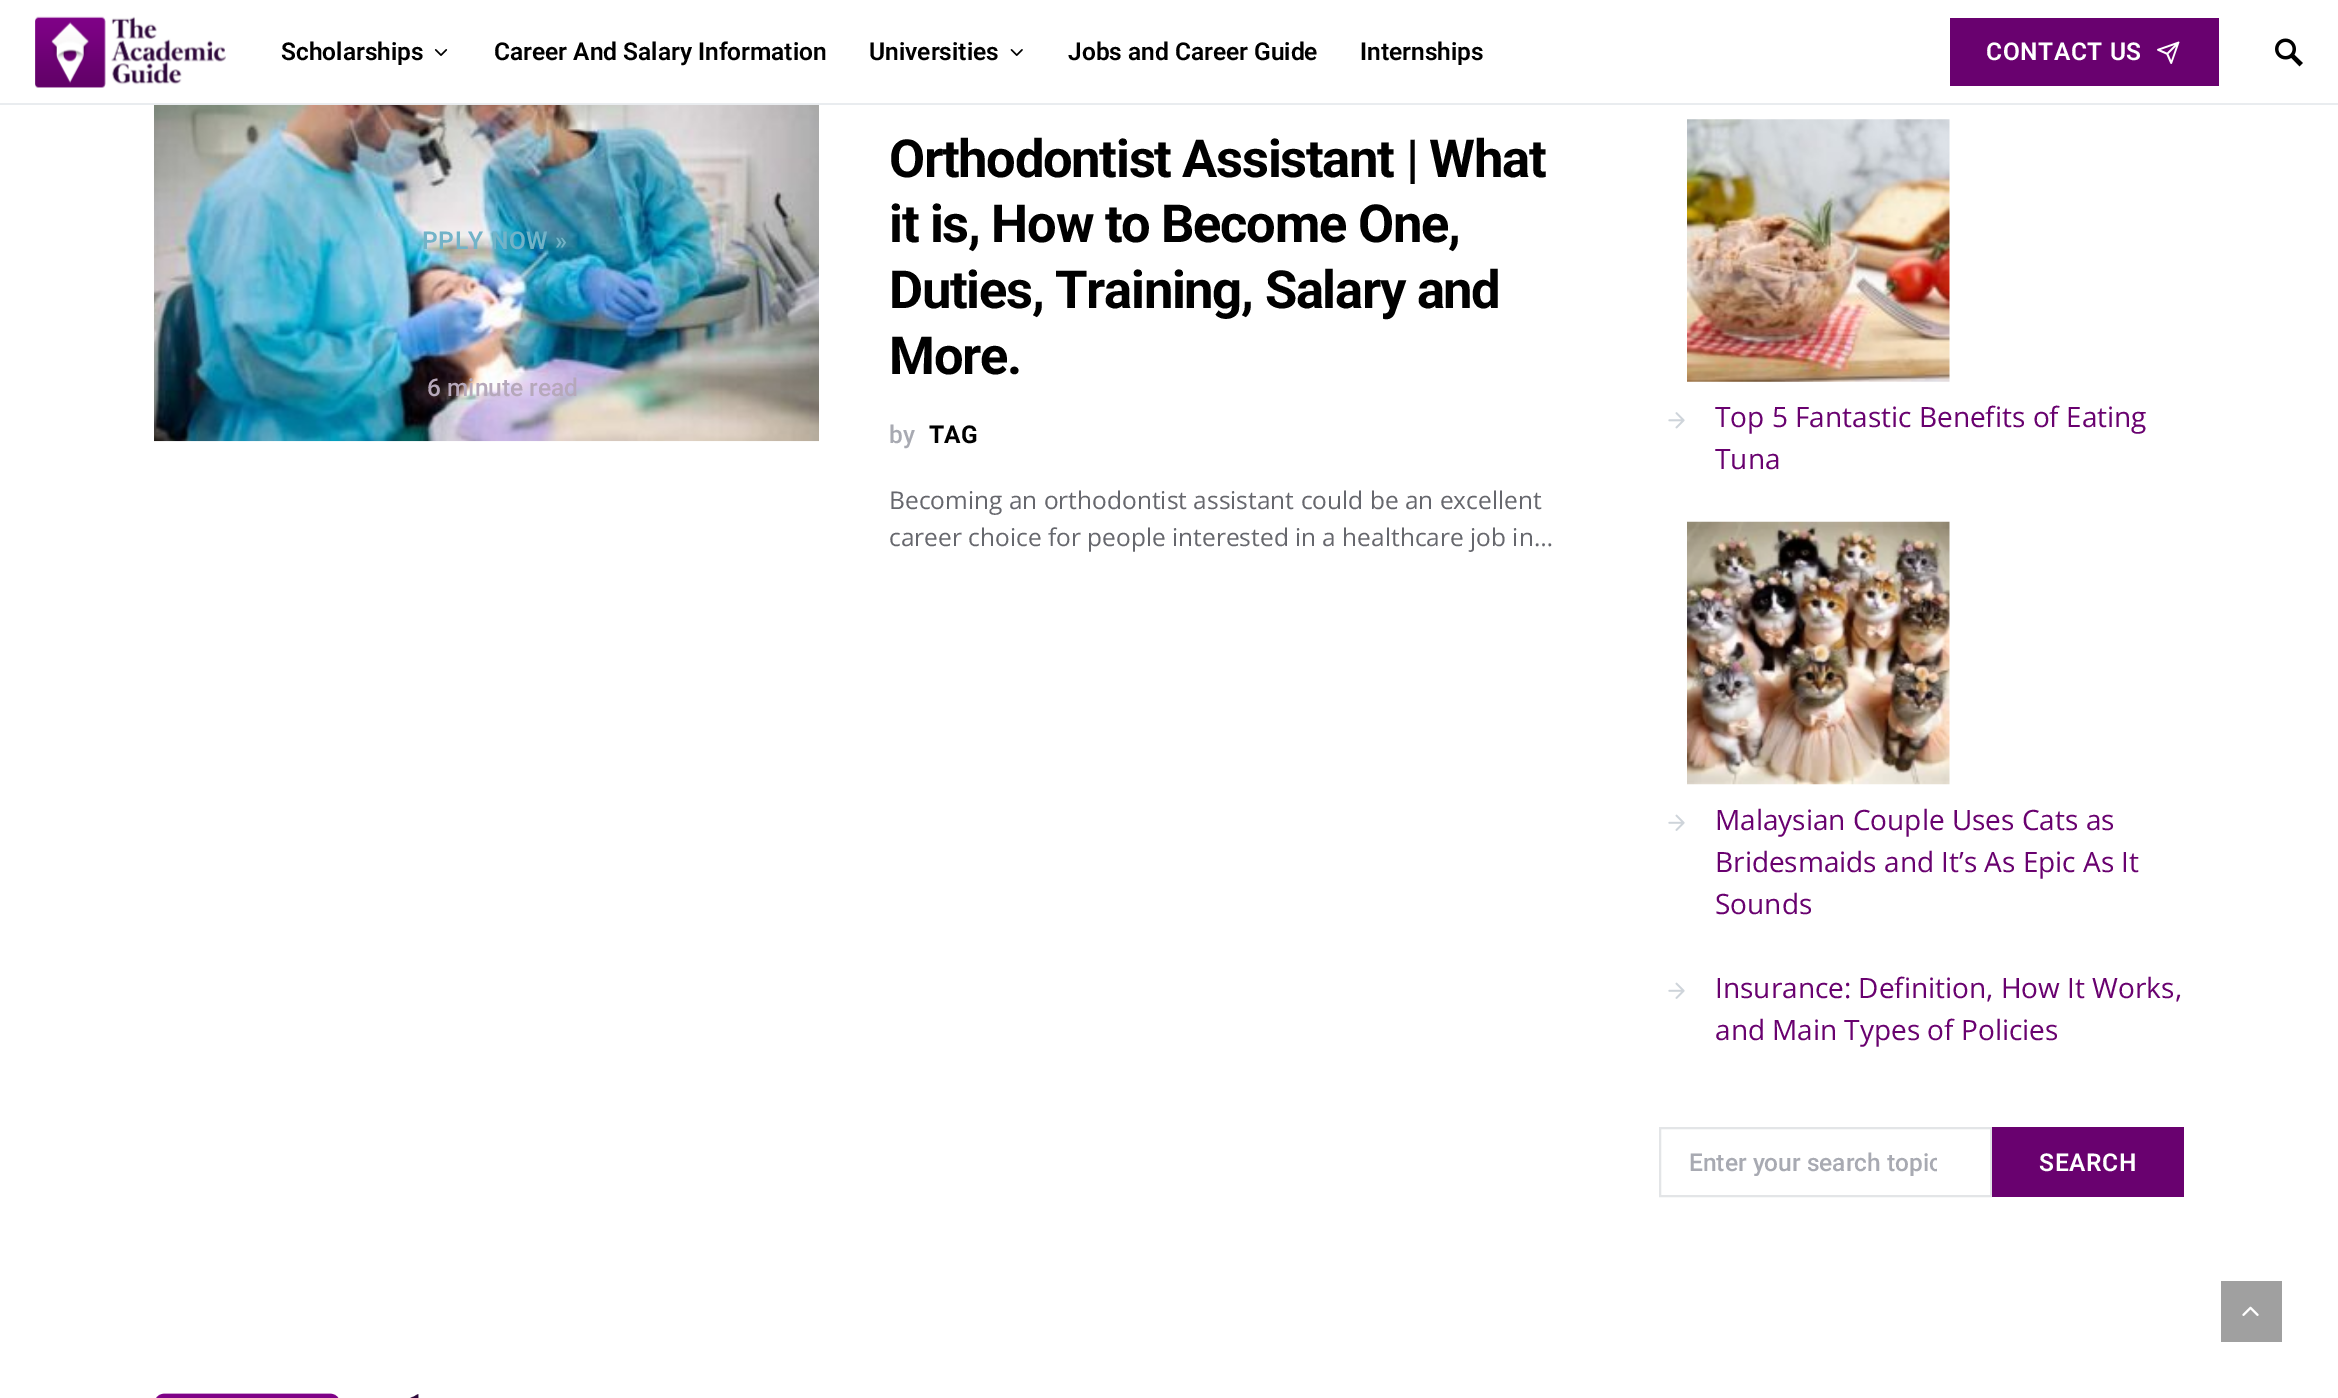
%!PS-Adobe-3.0
%%BoundingBox: 0 0 2338 1398
%%LanguageLevel: 3
%%Pages: 1
%%EndComments
%%BeginProlog
/setink { 3 { 255 div 3 1 roll } repeat setrgbcolor } def
/usefont { [ exch dup neg 0 0 3 -1 roll 0 0 ] selectfont } def
/drawtext { setink usefont moveto show } def
/fillbox { setink rectfill } def
/drawimage { 5 dict begin { /h /w /y /x /name } { exch def } forall
  gsave x y translate w h scale
  w h 8 [w 0 0 h 0 0] name (r) file false 3 colorimage grestore end } def
%%EndProlog
%%BeginSetup
<< /PageSize [2338 1398] >> setpagedevice
%%EndSetup
%%Page: 1 1
0 1398 translate 1 -1 scale
4 setmiterlimit
0 0 2338 1398 255 255 255 fillbox
0 103 2338 2 233 236 239 fillbox
(assets/img1.rgb) 35 16 191 72 drawimage
(Scholarships) 281 60 /Roboto-SemiBold 24.5 0 0 0 drawtext
(assets/img2.rgb) 434 49 14 7 drawimage
(Career And Salary Information) 494 60 /Roboto-SemiBold 24.5 0 0 0 drawtext
(Universities) 869 60 /Roboto-SemiBold 24.5 0 0 0 drawtext
(assets/img3.rgb) 1010 49 13 7 drawimage
(Jobs and Career Guide) 1068 60 /Roboto-SemiBold 24.5 0 0 0 drawtext
(Internships) 1360 60 /Roboto-SemiBold 24.5 0 0 0 drawtext
1950 18 269 68 105 1 111 fillbox
255 255 255 setink
1986 60 moveto 0.6 0 (CONTACT US) ashow
(assets/img4.rgb) 2157 41 23 23 drawimage
(assets/img5.rgb) 2275 38 28 29 drawimage
(assets/img6.rgb) 154 105 665 337 drawimage
114 179 200 setink
422 249 moveto 0.6 0 (PPLY NOW ») ashow
(6 minute read) 427 396 /Roboto-Medium 24.5 182 168 186 drawtext
/Roboto-Bold 52.5 usefont
0 0 0 setink
889 177 moveto -1.3 0 (Orthodontist Assistant | What) ashow
889 242 moveto -1.3 0 (it is, How to Become One,) ashow
889 308 moveto -1.3 0 (Duties, Training, Salary and) ashow
889 374 moveto -1.3 0 (More.) ashow
(by) 889 443 /Roboto-Medium 24.5 168 170 178 drawtext
(TAG) 929 443 /Roboto-Bold 24.5 0 0 0 drawtext
(Becoming an orthodontist assistant could be an excellent) 889 509 /OpenSans-Regular 24.5 102 103 109 drawtext
(career choice for people interested in a healthcare job in…) 889 546 /OpenSans-Regular 24.5 102 103 109 drawtext
(assets/img7.rgb) 1687 119 263 263 drawimage
(assets/img8.rgb) 1668 412 17 17 drawimage
(Top 5 Fantastic Benefits of Eating) 1715 427 /OpenSans-Regular 28 105 1 111 drawtext
(Tuna) 1715 469 /OpenSans-Regular 28 105 1 111 drawtext
(assets/img9.rgb) 1687 521 263 264 drawimage
(assets/img10.rgb) 1668 814 17 17 drawimage
(Malaysian Couple Uses Cats as) 1715 830 /OpenSans-Regular 28 105 1 111 drawtext
(Bridesmaids and It’s As Epic As It) 1715 872 /OpenSans-Regular 28 105 1 111 drawtext
(Sounds) 1715 914 /OpenSans-Regular 28 105 1 111 drawtext
(assets/img10.rgb) 1668 982 17 17 drawimage
(Insurance: Definition, How It Works,) 1715 998 /OpenSans-Regular 28 105 1 111 drawtext
(and Main Types of Policies) 1715 1040 /OpenSans-Regular 28 105 1 111 drawtext
227 229 231 setink
2 setlinewidth
1660 1128 331 68 rectstroke
gsave
1689 1148 248 28 rectclip
(Enter your search topic) 1689 1171 /Roboto-Medium 24.5 168 170 178 drawtext
grestore
1992 1127 192 70 105 1 111 fillbox
/Roboto-SemiBold 24.5 usefont
255 255 255 setink
2039 1171 moveto 0.6 0 (SEARCH) ashow
(assets/img11.rgb) 156 1393 263 5 drawimage
2221 1281 61 61 160 160 160 fillbox
(assets/img12.rgb) 2242 1306 17 10 drawimage
showpage
%%EOF
